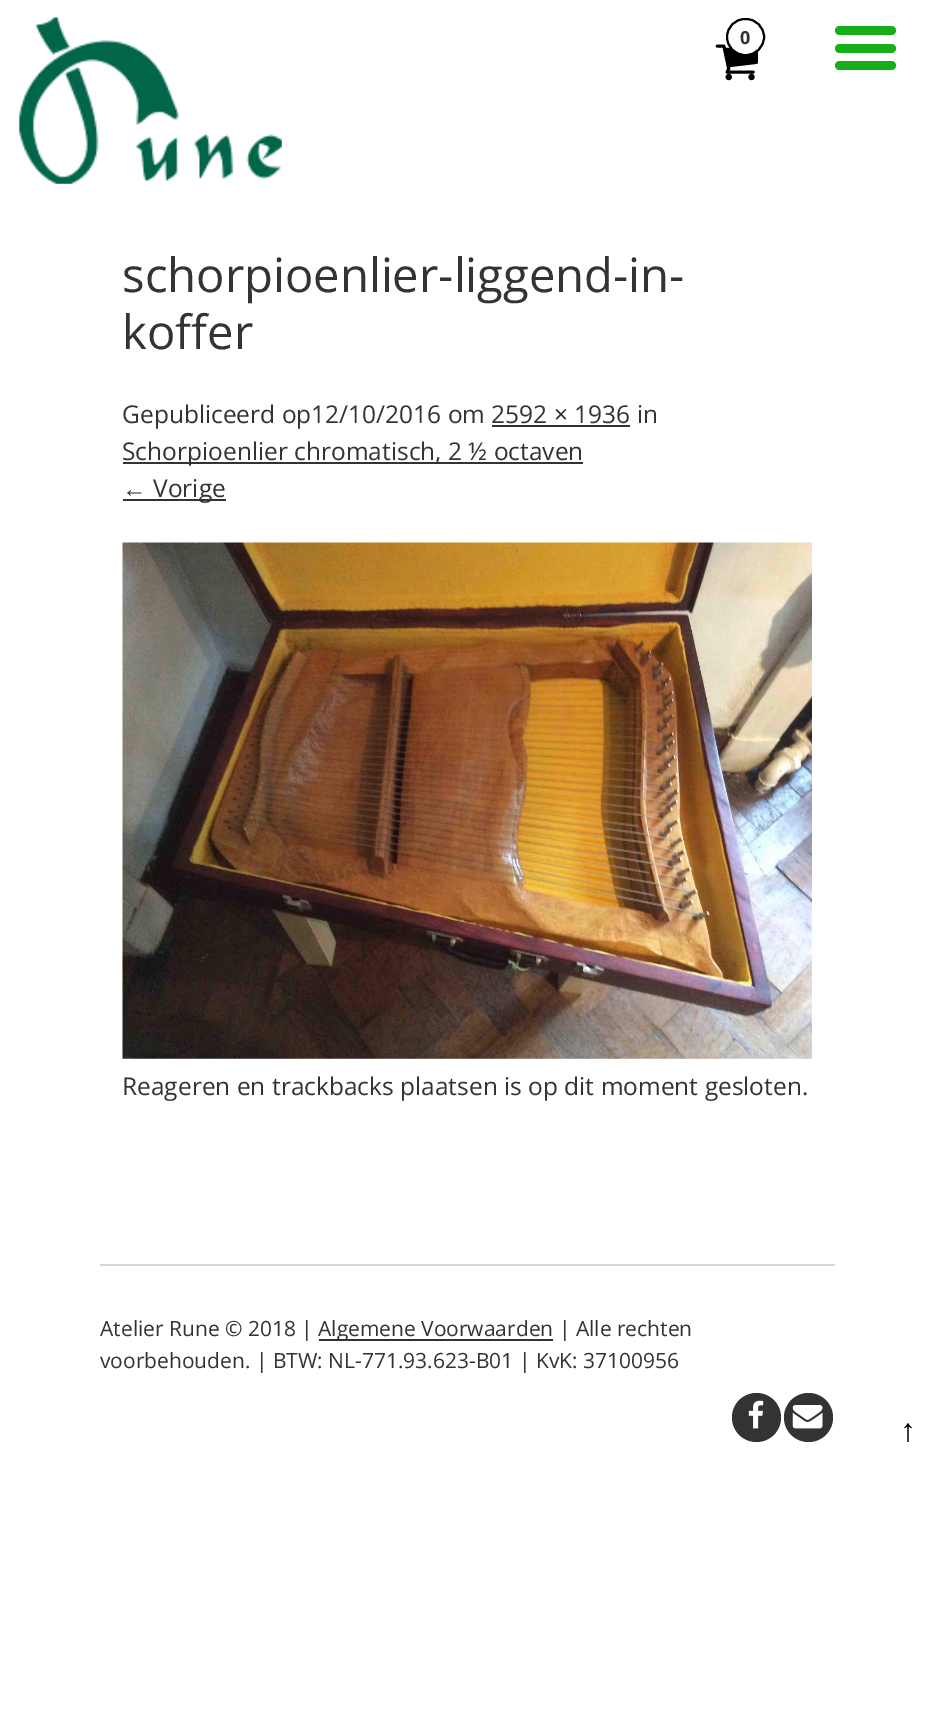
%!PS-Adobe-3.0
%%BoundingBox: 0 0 933 1731
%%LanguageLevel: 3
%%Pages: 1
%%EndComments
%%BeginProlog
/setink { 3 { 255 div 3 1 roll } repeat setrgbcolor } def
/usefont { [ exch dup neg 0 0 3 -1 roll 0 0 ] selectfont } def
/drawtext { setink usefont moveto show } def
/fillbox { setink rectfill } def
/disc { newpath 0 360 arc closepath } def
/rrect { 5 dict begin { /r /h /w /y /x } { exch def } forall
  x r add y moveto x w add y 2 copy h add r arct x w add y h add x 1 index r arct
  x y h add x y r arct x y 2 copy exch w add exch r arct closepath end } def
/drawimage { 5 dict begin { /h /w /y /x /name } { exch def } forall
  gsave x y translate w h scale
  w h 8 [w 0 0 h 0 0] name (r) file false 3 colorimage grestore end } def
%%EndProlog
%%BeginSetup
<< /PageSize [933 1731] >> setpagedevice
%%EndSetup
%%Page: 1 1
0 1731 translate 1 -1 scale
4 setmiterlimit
0 0 933 1731 255 255 255 fillbox
(assets/img1.rgb) 18 17 264 167 drawimage
(assets/img2.rgb) 715 44 43 37 drawimage
727 19 37 36 18 rrect gsave fill grestore
0 0 0 setink
2 setlinewidth
stroke
(0) 740 44 /OpenSans-Bold 18 51 51 51 drawtext
22 175 25 setink
835 26 61 9 4.5 rrect fill
835 44 61 9 4.5 rrect fill
835 61 61 9 4.5 rrect fill
(schorpioenlier-liggend-in-) 122 292 /OpenSans-Regular 47.25 51 51 51 drawtext
(koffer) 122 349 /OpenSans-Regular 47.25 51 51 51 drawtext
(Gepubliceerd op12/10/2016 om 2592 × 1936 in) 122 423 /OpenSans-Regular 24.5 51 51 51 drawtext
492 425 138 2 51 51 51 fillbox
123 462 460 2 51 51 51 fillbox
(Schorpioenlier chromatisch, 2 ½ octaven) 122 460 /OpenSans-Regular 24.5 51 51 51 drawtext
(←) 122 497 /LiberationSans-Regular 24.5 51 51 51 drawtext
123 499 103 2 51 51 51 fillbox
(Vorige) 153 497 /OpenSans-Regular 24.5 51 51 51 drawtext
(assets/img3.rgb) 122 542 690 517 drawimage
(Reageren en trackbacks plaatsen is op dit moment gesloten.) 122 1095 /OpenSans-Regular 24.5 51 51 51 drawtext
100 1264 735 2 214 214 214 fillbox
(Atelier Rune © 2018 |) 100 1336 /OpenSans-Regular 21 51 51 51 drawtext
319 1339 234 2 51 51 51 fillbox
(Algemene Voorwaarden | Alle rechten) 318 1336 /OpenSans-Regular 21 51 51 51 drawtext
(voorbehouden. | BTW: NL-771.93.623-B01 | KvK: 37100956) 100 1368 /OpenSans-Regular 21 51 51 51 drawtext
756.5 1417.5 24.5 disc fill
(assets/img4.rgb) 748 1400 16 29 drawimage
808.5 1417.5 24.5 disc fill
(assets/img5.rgb) 792 1405 31 24 drawimage
(↑) 900 1441 /LiberationSans-Regular 32 0 0 0 drawtext
showpage
%%EOF
